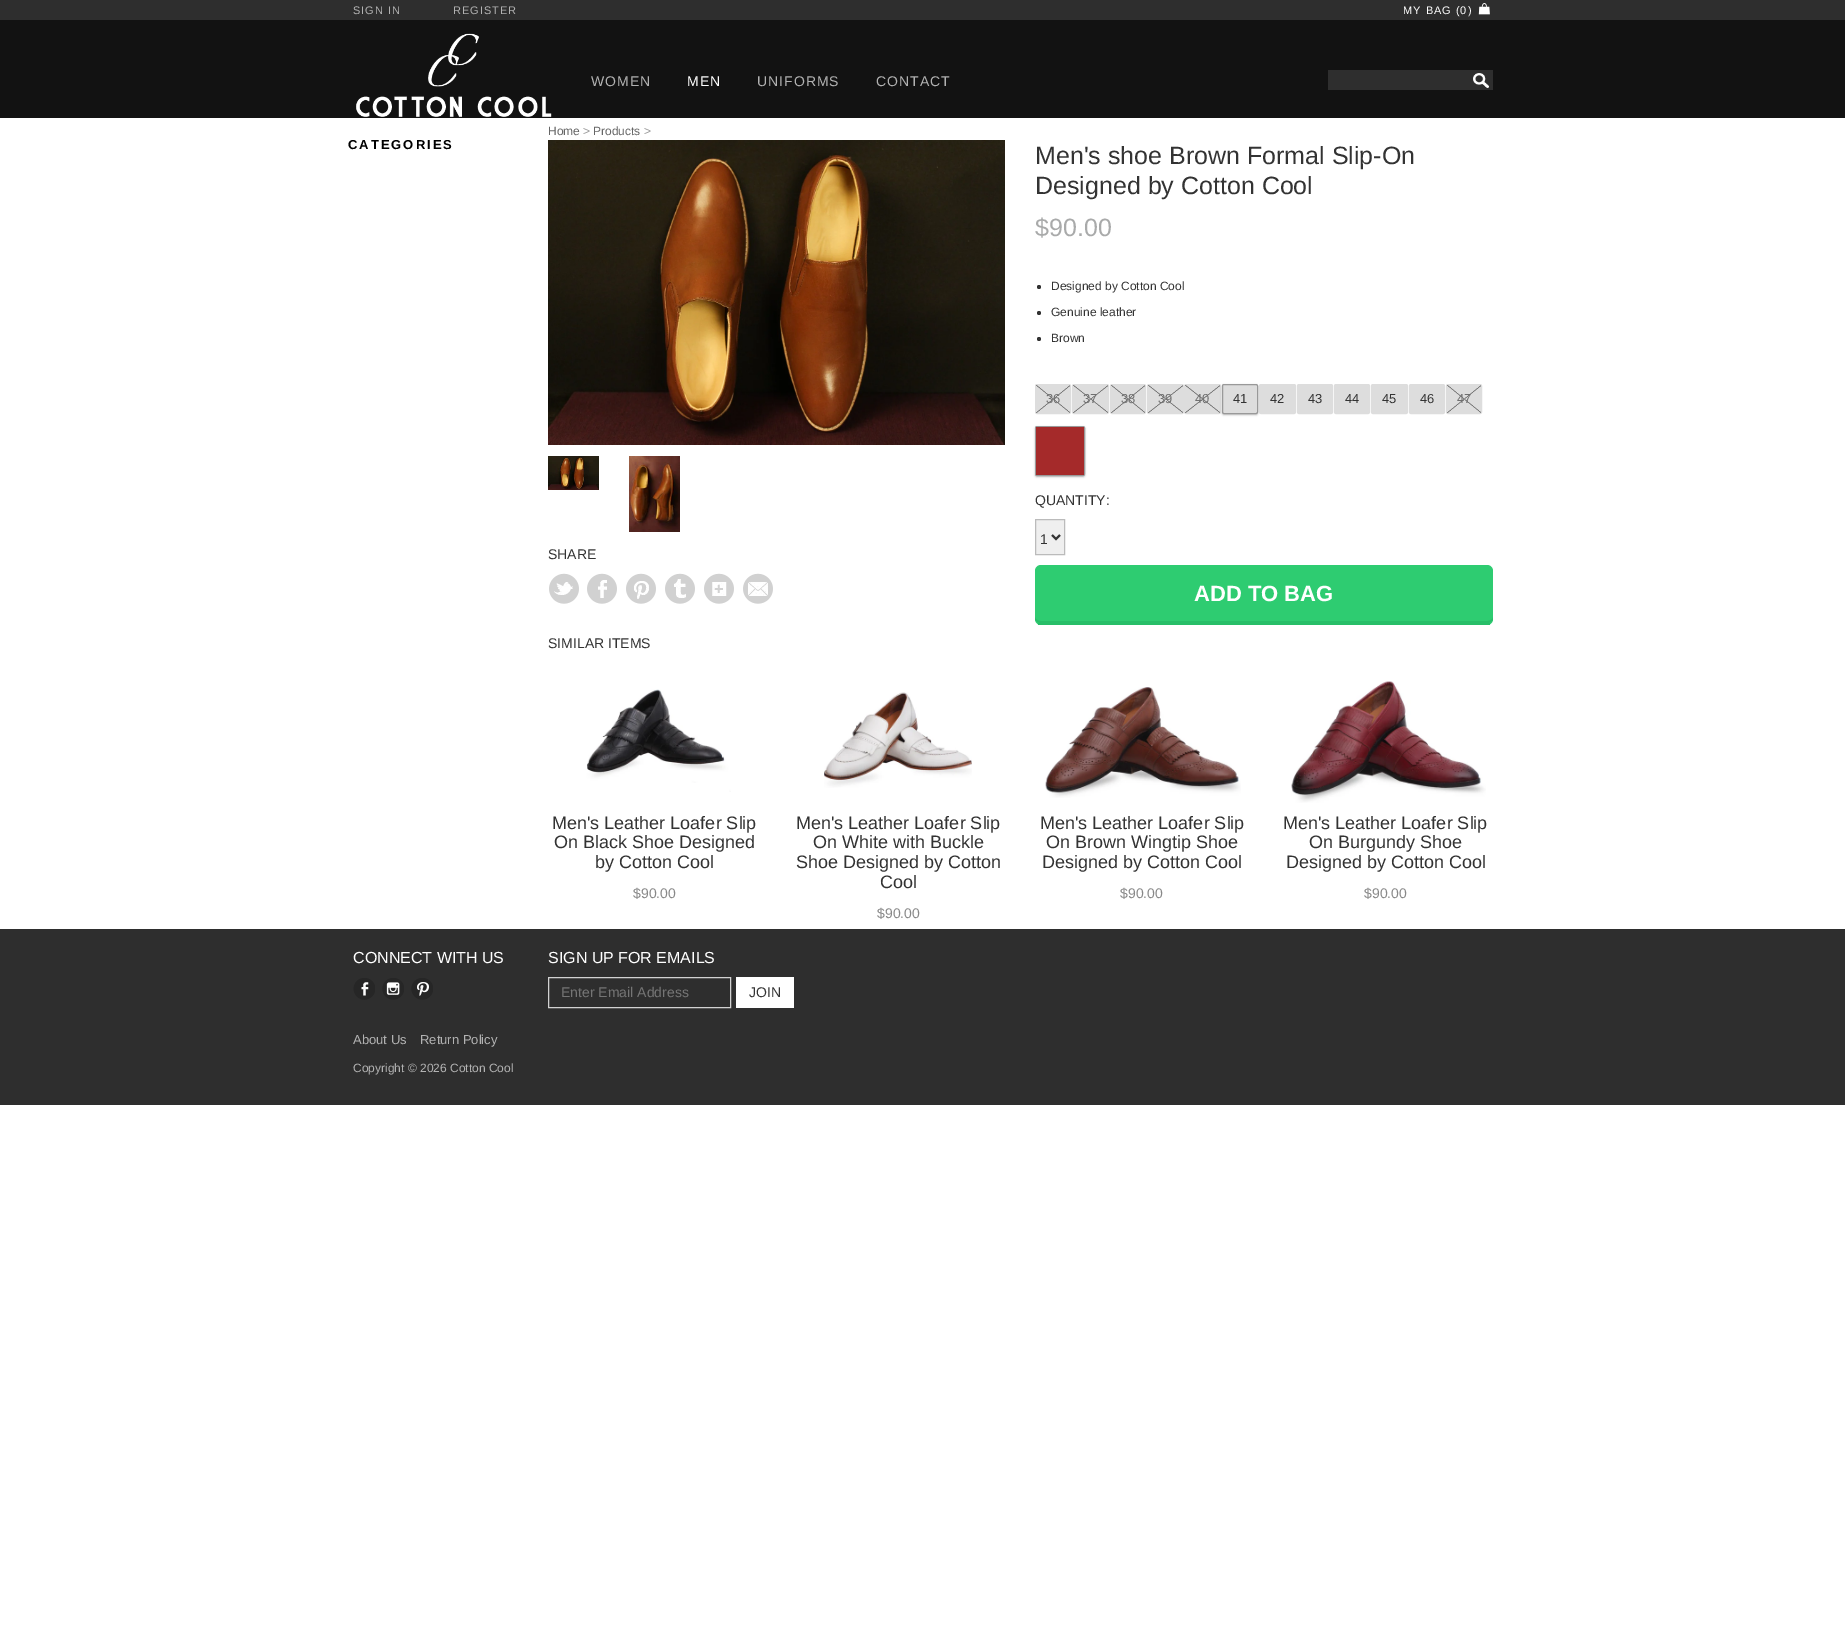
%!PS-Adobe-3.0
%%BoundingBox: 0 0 1845 1651
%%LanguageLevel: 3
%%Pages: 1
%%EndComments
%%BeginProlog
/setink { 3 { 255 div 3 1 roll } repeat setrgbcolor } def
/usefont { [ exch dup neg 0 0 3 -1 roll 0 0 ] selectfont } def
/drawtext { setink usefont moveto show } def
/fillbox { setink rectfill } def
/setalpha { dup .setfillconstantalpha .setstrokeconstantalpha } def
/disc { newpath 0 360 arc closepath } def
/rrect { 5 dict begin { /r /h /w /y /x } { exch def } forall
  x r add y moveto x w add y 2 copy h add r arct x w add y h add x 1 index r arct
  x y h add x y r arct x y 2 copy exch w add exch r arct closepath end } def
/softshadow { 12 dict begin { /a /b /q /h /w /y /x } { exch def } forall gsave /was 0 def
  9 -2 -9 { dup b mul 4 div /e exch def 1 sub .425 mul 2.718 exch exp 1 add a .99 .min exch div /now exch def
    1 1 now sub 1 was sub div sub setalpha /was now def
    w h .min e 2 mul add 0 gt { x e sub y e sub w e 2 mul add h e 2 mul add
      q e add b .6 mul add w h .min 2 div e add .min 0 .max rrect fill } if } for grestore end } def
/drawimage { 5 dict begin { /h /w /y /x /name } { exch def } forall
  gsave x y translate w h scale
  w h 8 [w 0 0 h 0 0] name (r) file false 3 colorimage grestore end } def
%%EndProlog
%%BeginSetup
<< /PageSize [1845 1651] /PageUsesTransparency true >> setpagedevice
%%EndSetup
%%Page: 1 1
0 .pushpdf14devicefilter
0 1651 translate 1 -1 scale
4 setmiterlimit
0 0 1845 1651 255 255 255 fillbox
0 0 1845 20 46 46 46 fillbox
/LiberationSans-Regular 11 usefont
178 178 178 setink
353 14 moveto 1 0 (SIGN IN) ashow
453 14 moveto 1 0 (REGISTER) ashow
255 255 255 setink
1403 14 moveto 1 0 (MY BAG \(0\)) ashow
(assets/img1.rgb) 1478 3 12 12 drawimage
0 20 1845 98 18 18 18 fillbox
(assets/img2.rgb) 356 33 196 84 drawimage
/LiberationSans-Regular 14 usefont
178 178 178 setink
591 86 moveto 1 0 (WOMEN) ashow
255 255 255 setink
687 86 moveto 1 0 (MEN) ashow
178 178 178 setink
757 86 moveto 1 0 (UNIFORMS) ashow
876 86 moveto 1 0 (CONTACT) ashow
1328 70 165 20 46 46 46 fillbox
(assets/img3.rgb) 1473 73 16 15 drawimage
/LiberationSans-Bold 13 usefont
0 0 0 setink
348 149 moveto 2 0 (CATEGORIES) ashow
(Home) 548 135 /LiberationSans-Regular 12 102 102 102 drawtext
(>) 583 135 /LiberationSans-Regular 12 153 153 153 drawtext
(Products) 593 135 /LiberationSans-Regular 12 102 102 102 drawtext
(>) 644 135 /LiberationSans-Regular 12 153 153 153 drawtext
(assets/img4.rgb) 548 140 457 305 drawimage
(assets/img5.rgb) 548 456 51 34 drawimage
(assets/img6.rgb) 629 456 51 76 drawimage
(Men's shoe Brown Formal Slip-On) 1035 164 /LiberationSans-Regular 25 51 51 51 drawtext
(Designed by Cotton Cool) 1035 194 /LiberationSans-Regular 25 51 51 51 drawtext
($90.00) 1035 236 /LiberationSans-Regular 25 169 170 170 drawtext
51 51 51 setink
1039 287 2 disc fill
(Designed by Cotton Cool) 1051 290 /LiberationSans-Regular 12 51 51 51 drawtext
1039 313 2 disc fill
(Genuine leather) 1051 316 /LiberationSans-Regular 12 51 51 51 drawtext
1039 339 2 disc fill
(Brown) 1051 342 /LiberationSans-Regular 12 51 51 51 drawtext
(SHARE) 548 559 /LiberationSans-Regular 14 51 51 51 drawtext
(assets/img7.rgb) 549 573 30 31 drawimage
(assets/img8.rgb) 587 573 30 31 drawimage
(assets/img9.rgb) 626 573 30 31 drawimage
(assets/img10.rgb) 665 573 30 31 drawimage
(assets/img11.rgb) 704 573 30 31 drawimage
(assets/img12.rgb) 743 573 30 31 drawimage
221 221 221 setink
1035.5 384.5 35 29 1.5 rrect gsave fill grestore
stroke
(assets/img13.rgb) 1036 385 34 28 drawimage
(36) 1046 403 /LiberationSans-Regular 13 111 111 111 drawtext
221 221 221 setink
1072.5 384.5 36 29 1.5 rrect gsave fill grestore
stroke
(assets/img14.rgb) 1073 385 35 28 drawimage
(37) 1083 403 /LiberationSans-Regular 13 111 111 111 drawtext
221 221 221 setink
1110.5 384.5 35 29 1.5 rrect gsave fill grestore
stroke
(assets/img13.rgb) 1111 385 34 28 drawimage
(38) 1121 403 /LiberationSans-Regular 13 111 111 111 drawtext
221 221 221 setink
1147.5 384.5 36 29 1.5 rrect gsave fill grestore
stroke
(assets/img14.rgb) 1148 385 35 28 drawimage
(39) 1158 403 /LiberationSans-Regular 13 111 111 111 drawtext
221 221 221 setink
1184.5 384.5 36 29 1.5 rrect gsave fill grestore
stroke
(assets/img14.rgb) 1185 385 35 28 drawimage
(40) 1195 403 /LiberationSans-Regular 13 111 111 111 drawtext
0 0 0 setink
1222 385 36 30 2 1 0.25 softshadow
221 221 221 setink
1222.5 384.5 35 29 1.5 rrect gsave fill grestore
153 153 153 setink
stroke
(41) 1233 403 /LiberationSans-Regular 13 51 51 51 drawtext
221 221 221 setink
1259.5 384.5 36 29 1.5 rrect gsave fill grestore
stroke
(42) 1270 403 /LiberationSans-Regular 13 51 51 51 drawtext
221 221 221 setink
1297.5 384.5 35 29 1.5 rrect gsave fill grestore
stroke
(43) 1308 403 /LiberationSans-Regular 13 51 51 51 drawtext
221 221 221 setink
1334.5 384.5 35 29 1.5 rrect gsave fill grestore
stroke
(44) 1345 403 /LiberationSans-Regular 13 51 51 51 drawtext
221 221 221 setink
1371.5 384.5 36 29 1.5 rrect gsave fill grestore
stroke
(45) 1382 403 /LiberationSans-Regular 13 51 51 51 drawtext
221 221 221 setink
1409.5 384.5 35 29 1.5 rrect gsave fill grestore
stroke
(46) 1420 403 /LiberationSans-Regular 13 51 51 51 drawtext
221 221 221 setink
1446.5 384.5 35 29 1.5 rrect gsave fill grestore
stroke
(assets/img13.rgb) 1447 385 34 28 drawimage
(47) 1457 403 /LiberationSans-Regular 13 111 111 111 drawtext
0 0 0 setink
1035 427 50 50 2 1 0.25 softshadow
153 153 153 setink
1035.5 426.5 49 49 1.5 rrect stroke
1036 427 48 48 165 42 42 fillbox
(QUANTITY:) 1035 505 /LiberationSans-Regular 14 51 51 51 drawtext
239 239 239 setink
1035.5 519.5 moveto 1064.5 519.5 lineto 1064.5 554.5 lineto 1035.5 554.5 lineto closepath gsave fill grestore
187 187 187 setink
stroke
51 51 51 setink
2 setlinewidth
1052 535 moveto 1056 539 lineto 1060 535 lineto stroke
(1) 1040 544 /LiberationSans-Regular 14 51 51 51 drawtext
46 204 113 setink
1035 565 458 60 6 rrect fill
40 190 104 setink
1035 617 moveto 1035 619 lineto 1035 621 1038 623 1041 623 curveto 1487 623 lineto 1490 623 1493 621 1493 619 curveto 1493 617 lineto 1493 619 1490 621 1487 621 curveto 1041 621 lineto 1038 621 1035 619 1035 617 curveto closepath fill
1038 623 452 2 40 190 104 fillbox
(ADD TO BAG) 1194 601 /LiberationSans-Bold 22 255 255 255 drawtext
(SIMILAR ITEMS) 548 648 /LiberationSans-Regular 14 51 51 51 drawtext
(assets/img15.rgb) 586 689 145 103 drawimage
(Men's Leather Loafer Slip) 552 829 /LiberationSans-Regular 18 51 51 51 drawtext
(On Black Shoe Designed) 554 848 /LiberationSans-Regular 18 51 51 51 drawtext
(by Cotton Cool) 595 868 /LiberationSans-Regular 18 51 51 51 drawtext
($90.00) 633 898 /LiberationSans-Regular 14 136 136 136 drawtext
(assets/img16.rgb) 824 692 148 96 drawimage
(Men's Leather Loafer Slip) 796 829 /LiberationSans-Regular 18 51 51 51 drawtext
(On White with Buckle) 813 848 /LiberationSans-Regular 18 51 51 51 drawtext
(Shoe Designed by Cotton) 796 868 /LiberationSans-Regular 18 51 51 51 drawtext
(Cool) 880 888 /LiberationSans-Regular 18 51 51 51 drawtext
($90.00) 877 918 /LiberationSans-Regular 14 136 136 136 drawtext
(assets/img17.rgb) 1045 687 196 111 drawimage
(Men's Leather Loafer Slip) 1040 829 /LiberationSans-Regular 18 51 51 51 drawtext
(On Brown Wingtip Shoe) 1046 848 /LiberationSans-Regular 18 51 51 51 drawtext
(Designed by Cotton Cool) 1042 868 /LiberationSans-Regular 18 51 51 51 drawtext
($90.00) 1120 898 /LiberationSans-Regular 14 136 136 136 drawtext
(assets/img18.rgb) 1291 681 195 122 drawimage
(Men's Leather Loafer Slip) 1283 829 /LiberationSans-Regular 18 51 51 51 drawtext
(On Burgundy Shoe) 1309 848 /LiberationSans-Regular 18 51 51 51 drawtext
(Designed by Cotton Cool) 1286 868 /LiberationSans-Regular 18 51 51 51 drawtext
($90.00) 1364 898 /LiberationSans-Regular 14 136 136 136 drawtext
0 929 1845 176 46 46 46 fillbox
(CONNECT WITH US) 353 963 /LiberationSans-Regular 16 255 255 255 drawtext
(assets/img19.rgb) 353 978 22 22 drawimage
(assets/img20.rgb) 382 978 22 22 drawimage
(assets/img21.rgb) 411 978 22 22 drawimage
(SIGN UP FOR EMAILS) 548 963 /LiberationSans-Regular 16 255 255 255 drawtext
210 210 210 setink
1 setlinewidth
548.5 977.5 182 30 rectstroke
(Enter Email Address) 561 997 /LiberationSans-Regular 14 117 117 117 drawtext
736 977 58 31 255 255 255 fillbox
(JOIN) 749 997 /LiberationSans-Regular 14 51 51 51 drawtext
(About Us) 353 1044 /LiberationSans-Regular 13 178 178 178 drawtext
(Return Policy) 420 1044 /LiberationSans-Regular 13 178 178 178 drawtext
(Copyright © 2026 Cotton Cool) 353 1072 /LiberationSans-Regular 12 178 178 178 drawtext
.poppdf14devicefilter showpage
%%EOF
